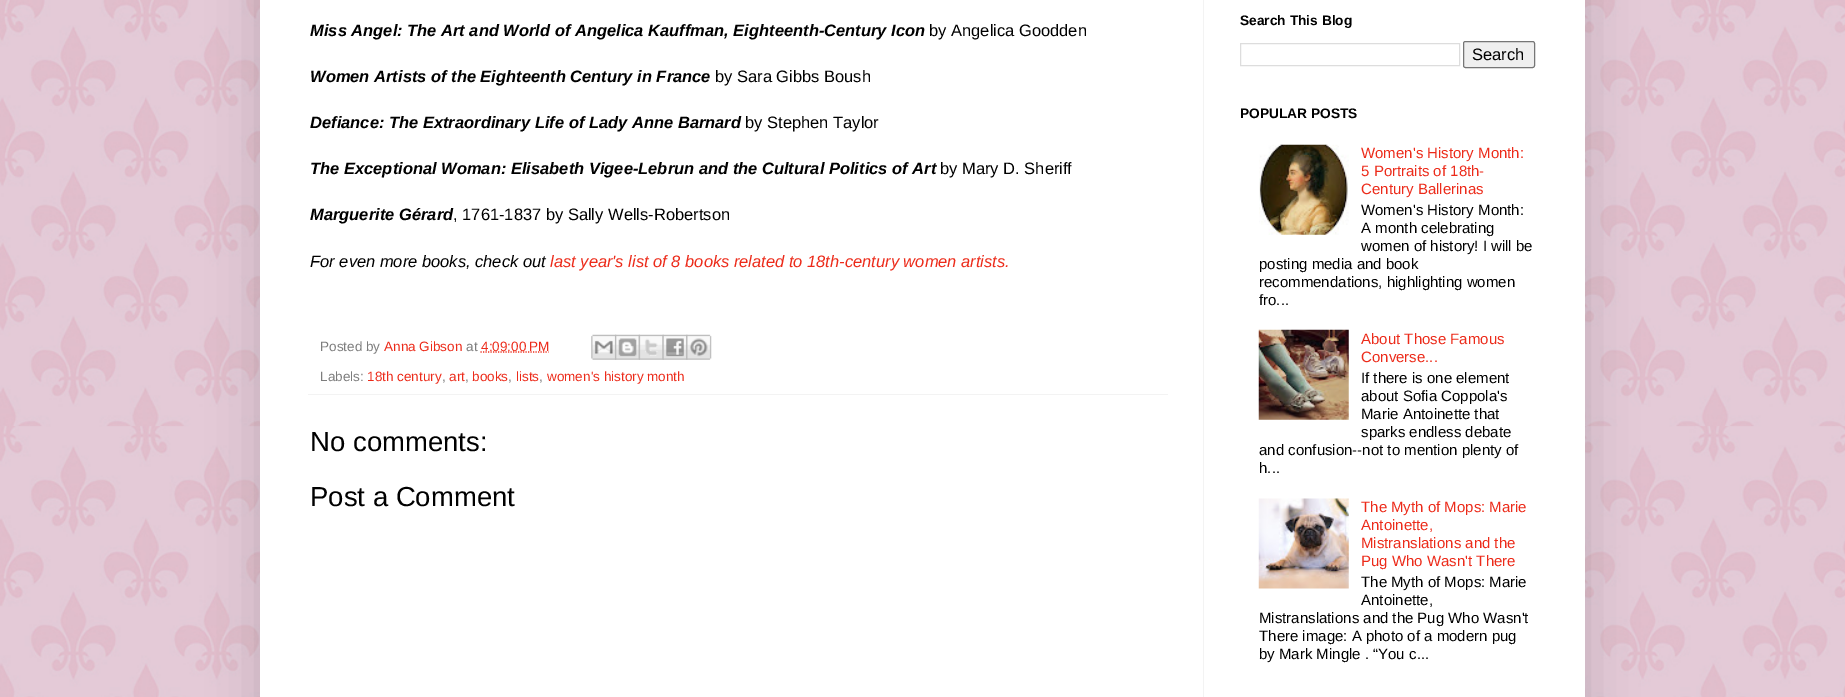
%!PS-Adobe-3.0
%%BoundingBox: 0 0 1845 697
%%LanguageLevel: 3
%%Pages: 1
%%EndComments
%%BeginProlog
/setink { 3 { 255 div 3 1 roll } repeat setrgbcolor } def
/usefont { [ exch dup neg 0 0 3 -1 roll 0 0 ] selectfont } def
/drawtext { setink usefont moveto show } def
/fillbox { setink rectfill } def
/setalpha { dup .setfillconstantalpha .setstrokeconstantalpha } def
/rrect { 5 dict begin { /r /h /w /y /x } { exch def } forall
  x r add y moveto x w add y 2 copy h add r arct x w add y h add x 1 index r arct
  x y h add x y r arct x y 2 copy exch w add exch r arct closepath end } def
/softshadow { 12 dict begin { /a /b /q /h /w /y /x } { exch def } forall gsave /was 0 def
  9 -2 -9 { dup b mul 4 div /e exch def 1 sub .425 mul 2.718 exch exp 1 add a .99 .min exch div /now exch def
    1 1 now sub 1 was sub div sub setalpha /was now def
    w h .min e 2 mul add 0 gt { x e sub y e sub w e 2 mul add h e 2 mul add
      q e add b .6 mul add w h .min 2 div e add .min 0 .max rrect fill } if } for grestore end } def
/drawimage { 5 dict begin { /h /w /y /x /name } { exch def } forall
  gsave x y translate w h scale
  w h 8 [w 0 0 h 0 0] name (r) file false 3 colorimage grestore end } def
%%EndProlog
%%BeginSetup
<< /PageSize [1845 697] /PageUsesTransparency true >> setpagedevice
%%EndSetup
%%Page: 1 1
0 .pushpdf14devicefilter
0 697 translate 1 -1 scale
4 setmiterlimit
0 0 1845 697 255 255 255 fillbox
(assets/img1.rgb) 0 0 1845 697 drawimage
0 0 0 setink
260 -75 1325 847 0 25 0.15 softshadow
260 0 1325 697 255 255 255 fillbox
1203 0 1 697 243 243 243 fillbox
(Miss Angel: The Art and World of Angelica Kauffman, Eighteenth-Century Icon) 310 36 /LiberationSans-BoldItalic 16.5 0 0 0 drawtext
(by Angelica Goodden) 929 36 /LiberationSans-Regular 16.5 0 0 0 drawtext
(Women Artists of the Eighteenth Century in France) 310 82 /LiberationSans-BoldItalic 16.5 0 0 0 drawtext
(by Sara Gibbs Boush) 715 82 /LiberationSans-Regular 16.5 0 0 0 drawtext
(Defiance: The Extraordinary Life of Lady Anne Barnard) 310 128 /LiberationSans-BoldItalic 16.5 0 0 0 drawtext
(by Stephen Taylor) 745 128 /LiberationSans-Regular 16.5 0 0 0 drawtext
(The Exceptional Woman: Elisabeth Vigee-Lebrun and the Cultural Politics of Art) 310 174 /LiberationSans-BoldItalic 16.5 0 0 0 drawtext
(by Mary D. Sheriff) 940 174 /LiberationSans-Regular 16.5 0 0 0 drawtext
(Marguerite Gérard) 310 220 /LiberationSans-BoldItalic 16.5 0 0 0 drawtext
(, 1761-1837 by Sally Wells-Robertson) 453 220 /LiberationSans-Regular 16.5 0 0 0 drawtext
(For even more books, check out) 310 267 /LiberationSans-Italic 16.5 0 0 0 drawtext
(last year's list of 8 books related to 18th-century women artists.) 550 267 /LiberationSans-Italic 16.5 236 43 26 drawtext
308 394 860 1 243 243 243 fillbox
(Posted by) 320 351 /LiberationSans-Regular 13.5 125 125 125 drawtext
(Anna Gibson) 384 351 /LiberationSans-Regular 13.5 236 43 26 drawtext
(at) 466 351 /LiberationSans-Regular 13.5 125 125 125 drawtext
236 43 26 setink
1.2 setlinewidth
[1.25 1.25] 0 setdash
480.5 352 moveto 548.5 352 lineto stroke
(4:09:00 PM) 481 351 /LiberationSans-Regular 13.5 236 43 26 drawtext
(assets/img2.rgb) 591 334 26 26 drawimage
(assets/img3.rgb) 615 334 25 26 drawimage
(assets/img4.rgb) 638 334 26 26 drawimage
(assets/img5.rgb) 662 334 26 26 drawimage
(assets/img6.rgb) 686 334 26 26 drawimage
(Labels:) 320 381 /LiberationSans-Regular 13.5 125 125 125 drawtext
(18th century) 367 381 /LiberationSans-Regular 13.5 236 43 26 drawtext
(,) 442 381 /LiberationSans-Regular 13.5 125 125 125 drawtext
(art) 449 381 /LiberationSans-Regular 13.5 236 43 26 drawtext
(,) 465 381 /LiberationSans-Regular 13.5 125 125 125 drawtext
(books) 472 381 /LiberationSans-Regular 13.5 236 43 26 drawtext
(,) 508 381 /LiberationSans-Regular 13.5 125 125 125 drawtext
(lists) 516 381 /LiberationSans-Regular 13.5 236 43 26 drawtext
(,) 539 381 /LiberationSans-Regular 13.5 125 125 125 drawtext
(women's history month) 547 381 /LiberationSans-Regular 13.5 236 43 26 drawtext
(No comments:) 310 451 /LiberationSans-Regular 27.5 0 0 0 drawtext
(Post a Comment) 310 506 /LiberationSans-Regular 27.5 0 0 0 drawtext
(Search This Blog) 1240 25 /LiberationSans-Bold 13.75 0 0 0 drawtext
221 221 221 setink
1 setlinewidth
[] 0 setdash
1240.5 43.5 219 22 rectstroke
239 239 239 setink
1463.5 41.5 71 26 2 rrect gsave fill grestore
118 118 118 setink
stroke
(Search) 1472 60 /LiberationSans-Regular 16.5 0 0 0 drawtext
(POPULAR POSTS) 1240 118 /LiberationSans-Bold 13.75 0 0 0 drawtext
(assets/img7.rgb) 1259 144 90 91 drawimage
(Women's History Month:) 1361 158 /LiberationSans-Regular 15 236 43 26 drawtext
(5 Portraits of 18th-) 1361 176 /LiberationSans-Regular 15 236 43 26 drawtext
(Century Ballerinas) 1361 194 /LiberationSans-Regular 15 236 43 26 drawtext
(Women's History Month:) 1361 215 /LiberationSans-Regular 15 0 0 0 drawtext
(A month celebrating) 1361 233 /LiberationSans-Regular 15 0 0 0 drawtext
(women of history! I will be) 1361 251 /LiberationSans-Regular 15 0 0 0 drawtext
(posting media and book) 1259 269 /LiberationSans-Regular 15 0 0 0 drawtext
(recommendations, highlighting women) 1259 287 /LiberationSans-Regular 15 0 0 0 drawtext
(fro...) 1259 305 /LiberationSans-Regular 15 0 0 0 drawtext
(assets/img8.rgb) 1258 329 91 91 drawimage
(About Those Famous) 1361 344 /LiberationSans-Regular 15 236 43 26 drawtext
(Converse...) 1361 362 /LiberationSans-Regular 15 236 43 26 drawtext
(If there is one element) 1361 383 /LiberationSans-Regular 15 0 0 0 drawtext
(about Sofia Coppola's) 1361 401 /LiberationSans-Regular 15 0 0 0 drawtext
(Marie Antoinette that) 1361 419 /LiberationSans-Regular 15 0 0 0 drawtext
(sparks endless debate) 1361 437 /LiberationSans-Regular 15 0 0 0 drawtext
(and confusion--not to mention plenty of) 1259 455 /LiberationSans-Regular 15 0 0 0 drawtext
(h...) 1259 473 /LiberationSans-Regular 15 0 0 0 drawtext
(assets/img9.rgb) 1258 498 91 91 drawimage
(The Myth of Mops: Marie) 1361 512 /LiberationSans-Regular 15 236 43 26 drawtext
(Antoinette,) 1361 530 /LiberationSans-Regular 15 236 43 26 drawtext
(Mistranslations and the) 1361 548 /LiberationSans-Regular 15 236 43 26 drawtext
(Pug Who Wasn't There) 1361 566 /LiberationSans-Regular 15 236 43 26 drawtext
(The Myth of Mops: Marie) 1361 587 /LiberationSans-Regular 15 0 0 0 drawtext
(Antoinette,) 1361 605 /LiberationSans-Regular 15 0 0 0 drawtext
(Mistranslations and the Pug Who Wasn't) 1259 623 /LiberationSans-Regular 15 0 0 0 drawtext
(There image: A photo of a modern pug) 1259 641 /LiberationSans-Regular 15 0 0 0 drawtext
(by Mark Mingle . “You c...) 1259 659 /LiberationSans-Regular 15 0 0 0 drawtext
.poppdf14devicefilter showpage
%%EOF
